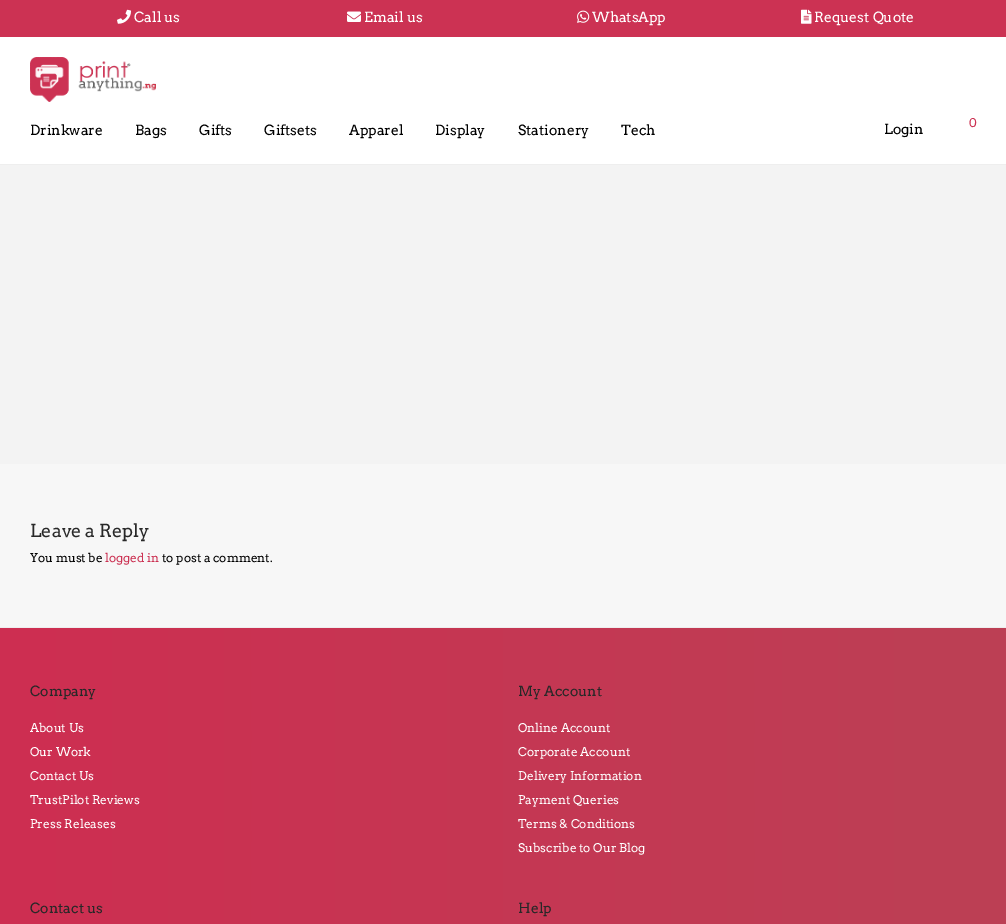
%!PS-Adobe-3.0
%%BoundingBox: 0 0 1006 924
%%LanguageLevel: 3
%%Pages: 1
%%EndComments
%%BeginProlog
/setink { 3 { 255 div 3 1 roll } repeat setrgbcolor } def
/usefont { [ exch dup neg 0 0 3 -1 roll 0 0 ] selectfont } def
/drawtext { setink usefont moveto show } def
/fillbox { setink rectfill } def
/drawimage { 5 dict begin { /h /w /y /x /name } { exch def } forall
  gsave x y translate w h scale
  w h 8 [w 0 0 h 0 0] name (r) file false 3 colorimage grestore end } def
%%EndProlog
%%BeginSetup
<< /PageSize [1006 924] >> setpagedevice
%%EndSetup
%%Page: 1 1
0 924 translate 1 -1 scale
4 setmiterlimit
0 0 1006 924 243 243 243 fillbox
0 0 1006 37 204 50 83 fillbox
(assets/img1.rgb) 117 9 14 15 drawimage
(Call us) 134 22 /Arvo-Regular 14 255 255 255 drawtext
(assets/img2.rgb) 347 11 14 11 drawimage
(Email us) 364 22 /Arvo-Regular 14 255 255 255 drawtext
(assets/img3.rgb) 577 10 13 13 drawimage
(WhatsApp) 592 22 /Arvo-Regular 14 255 255 255 drawtext
(assets/img4.rgb) 801 9 11 15 drawimage
(Request Quote) 814 22 /Arvo-Regular 14 255 255 255 drawtext
0 37 1006 127 255 255 255 fillbox
0 164 1006 1 238 238 238 fillbox
(assets/img5.rgb) 30 57 126 45 drawimage
(Drinkware) 30 135 /Arvo-Regular 14 0 0 0 drawtext
(Bags) 135 135 /Arvo-Regular 14 0 0 0 drawtext
(Gifts) 199 135 /Arvo-Regular 14 0 0 0 drawtext
(Giftsets) 264 135 /Arvo-Regular 14 0 0 0 drawtext
(Apparel) 349 135 /Arvo-Regular 14 0 0 0 drawtext
(Display) 435 135 /Arvo-Regular 14 0 0 0 drawtext
(Stationery) 518 135 /Arvo-Regular 14 0 0 0 drawtext
(Tech) 621 135 /Arvo-Regular 14 0 0 0 drawtext
(Login) 884 134 /Arvo-Regular 14 0 0 0 drawtext
(0) 969 127 /Arvo-Regular 12 204 50 83 drawtext
0 464 1006 163 247 247 247 fillbox
(Leave a Reply) 30 537 /Arvo-Regular 18 40 40 40 drawtext
(You must be) 30 562 /Arvo-Regular 12 0 0 0 drawtext
(logged in) 105 562 /Arvo-Regular 12 204 50 83 drawtext
(to post a comment.) 162 562 /Arvo-Regular 12 0 0 0 drawtext
gsave 0 628 moveto 1006 628 lineto 1006 924 lineto 0 924 lineto closepath clip newpath
<< /ShadingType 2 /ColorSpace /DeviceRGB /Coords [0 880 1006 880] /Extend [true true] /Function << /FunctionType 2 /Domain [0 1] /C0 [0.808 0.18 0.318] /C1 [0.737 0.251 0.333] /N 1 >> >> shfill grestore
0 627 1006 1 238 238 238 fillbox
(Company) 30 696 /Arvo-Regular 14 40 40 40 drawtext
(About Us) 30 732 /Arvo-Regular 12 255 255 255 drawtext
(Our Work) 30 756 /Arvo-Regular 12 255 255 255 drawtext
(Contact Us) 30 780 /Arvo-Regular 12 255 255 255 drawtext
(TrustPilot Reviews) 30 804 /Arvo-Regular 12 255 255 255 drawtext
(Press Releases) 30 828 /Arvo-Regular 12 255 255 255 drawtext
(My Account) 518 696 /Arvo-Regular 14 40 40 40 drawtext
(Online Account) 518 732 /Arvo-Regular 12 255 255 255 drawtext
(Corporate Account) 518 756 /Arvo-Regular 12 255 255 255 drawtext
(Delivery Information) 518 780 /Arvo-Regular 12 255 255 255 drawtext
(Payment Queries) 518 804 /Arvo-Regular 12 255 255 255 drawtext
(Terms & Conditions) 518 828 /Arvo-Regular 12 255 255 255 drawtext
(Subscribe to Our Blog) 518 852 /Arvo-Regular 12 255 255 255 drawtext
(Contact us) 30 913 /Arvo-Regular 14 40 40 40 drawtext
(Help) 518 913 /Arvo-Regular 14 40 40 40 drawtext
showpage
%%EOF
